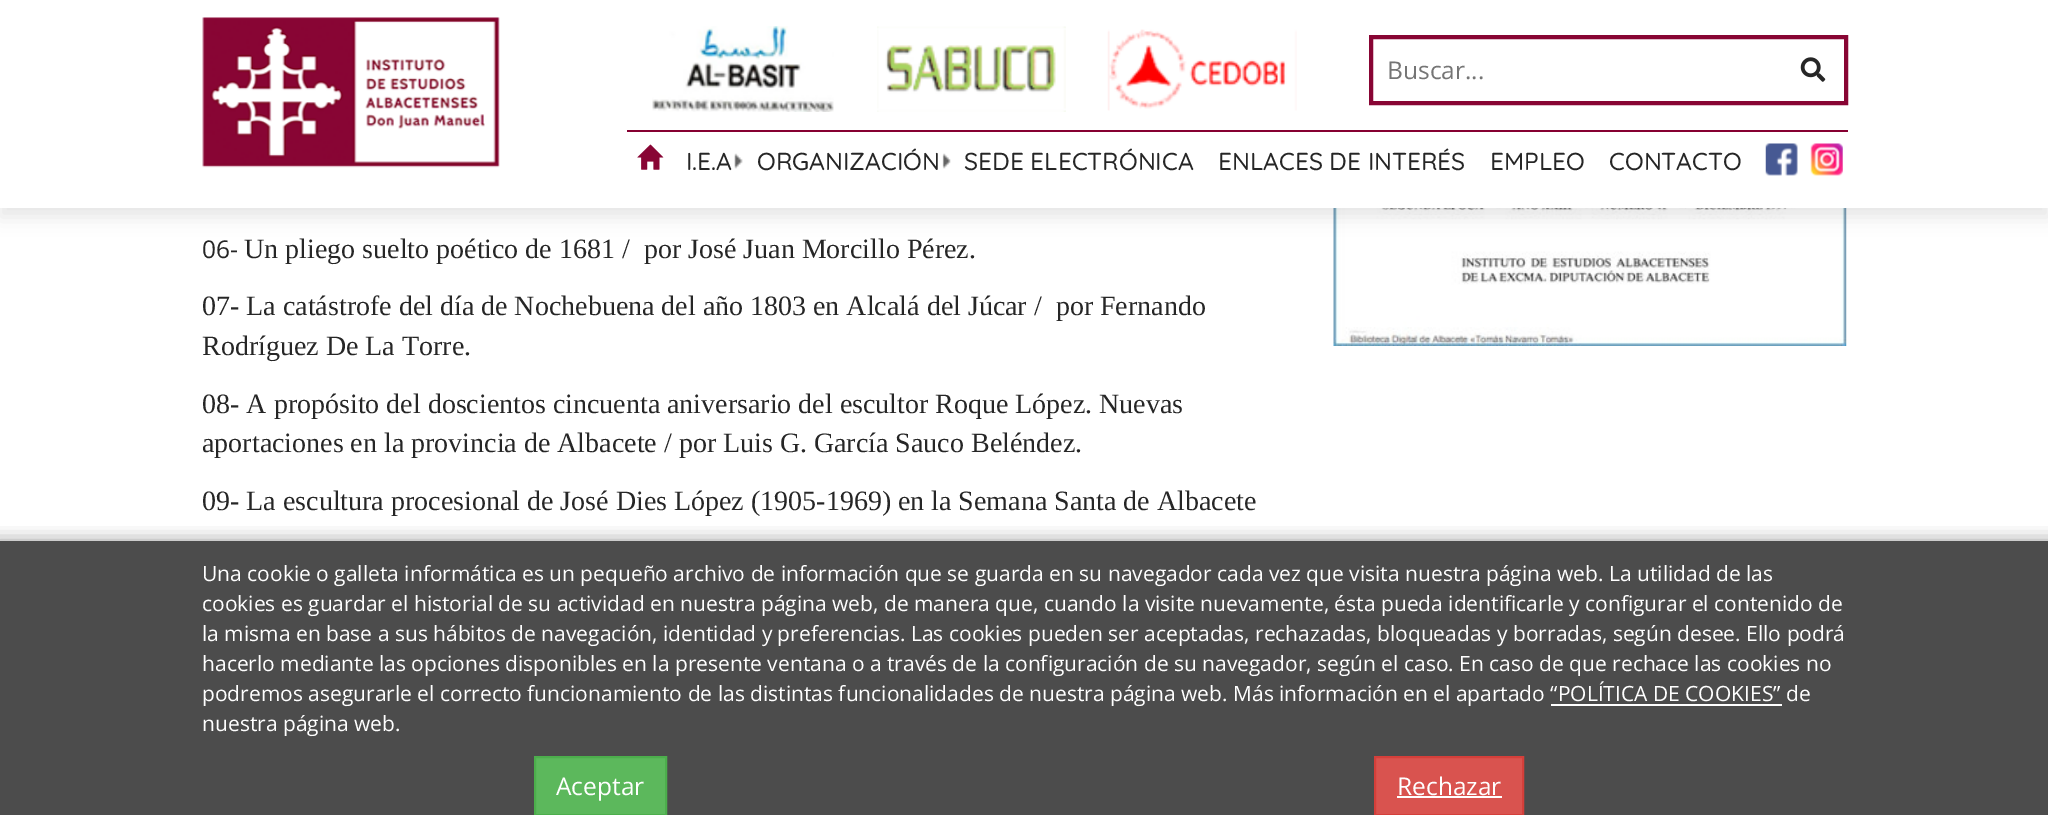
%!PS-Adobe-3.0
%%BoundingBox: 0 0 2048 815
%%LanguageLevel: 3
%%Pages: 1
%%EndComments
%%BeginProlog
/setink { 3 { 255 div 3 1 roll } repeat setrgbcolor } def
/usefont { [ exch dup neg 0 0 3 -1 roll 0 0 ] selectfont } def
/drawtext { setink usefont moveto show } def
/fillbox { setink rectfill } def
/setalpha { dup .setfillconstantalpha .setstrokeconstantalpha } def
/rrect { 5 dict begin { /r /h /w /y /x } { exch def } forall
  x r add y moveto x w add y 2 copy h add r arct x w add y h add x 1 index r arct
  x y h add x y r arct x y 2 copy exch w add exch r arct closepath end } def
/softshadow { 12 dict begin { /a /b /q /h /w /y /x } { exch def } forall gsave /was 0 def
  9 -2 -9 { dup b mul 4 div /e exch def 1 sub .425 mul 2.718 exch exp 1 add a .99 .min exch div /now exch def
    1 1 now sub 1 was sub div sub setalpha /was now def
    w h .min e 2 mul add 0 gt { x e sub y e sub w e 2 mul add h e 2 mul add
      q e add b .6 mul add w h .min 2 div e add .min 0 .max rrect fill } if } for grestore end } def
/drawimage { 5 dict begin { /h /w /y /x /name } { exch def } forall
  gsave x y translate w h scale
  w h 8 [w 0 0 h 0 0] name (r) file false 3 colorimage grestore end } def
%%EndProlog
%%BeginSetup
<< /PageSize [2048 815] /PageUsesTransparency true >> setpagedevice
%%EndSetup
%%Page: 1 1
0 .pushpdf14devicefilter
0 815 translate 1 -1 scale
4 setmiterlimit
0 0 2048 815 255 255 255 fillbox
(assets/img11.rgb) 1333 208 514 138 drawimage
0 0 0 setink
0 9 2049 208 0 9 0.1 softshadow
0 0 2048 208 255 255 255 fillbox
(assets/img1.rgb) 202 17 298 151 drawimage
(assets/img2.rgb) 652 26 182 86 drawimage
(assets/img3.rgb) 877 26 189 86 drawimage
(assets/img4.rgb) 1107 29 190 82 drawimage
136 5 52 setink
4 setlinewidth
1371 37 475 66 rectstroke
(Buscar...) 1387 79 /OpenSans-Regular 24.5 117 117 117 drawtext
(assets/img5.rgb) 1800 57 26 25 drawimage
627 130 1221 2 134 0 49 fillbox
(assets/img6.rgb) 637 144 27 26 drawimage
(assets/img7.rgb) 734 153 9 16 drawimage
(I.E.A) 686 170 /Quicksand-Medium 24.5 38 38 38 drawtext
(assets/img8.rgb) 942 153 9 16 drawimage
(ORGANIZACIÓN) 757 170 /Quicksand-Medium 24.5 38 38 38 drawtext
(SEDE ELECTRÓNICA) 964 170 /Quicksand-Medium 24.5 38 38 38 drawtext
(ENLACES DE INTERÉS) 1218 170 /Quicksand-Medium 24.5 38 38 38 drawtext
(EMPLEO) 1490 170 /Quicksand-Medium 24.5 38 38 38 drawtext
(CONTACTO) 1609 170 /Quicksand-Medium 24.5 38 38 38 drawtext
(assets/img9.rgb) 1765 143 33 33 drawimage
(assets/img10.rgb) 1810 143 33 33 drawimage
(06-) 202 258 /OpenSans-Regular 24.5 38 38 38 drawtext
(Un pliego suelto poético de 1681 /  por José Juan Morcillo Pérez.) 244 258 /LiberationSerif-Regular 28 38 38 38 drawtext
(07- La catástrofe del día de Nochebuena del año 1803 en Alcalá del Júcar /  por Fernando) 202 315 /LiberationSerif-Regular 28 38 38 38 drawtext
(Rodríguez De La Torre.) 202 355 /LiberationSerif-Regular 28 38 38 38 drawtext
(08- A propósito del doscientos cincuenta aniversario del escultor Roque López. Nuevas) 202 413 /LiberationSerif-Regular 28 38 38 38 drawtext
(aportaciones en la provincia de Albacete / por Luis G. García Sauco Beléndez.) 202 452 /LiberationSerif-Regular 28 38 38 38 drawtext
(09- La escultura procesional de José Dies López \(1905-1969\) en la Semana Santa de Albacete) 202 510 /LiberationSerif-Regular 28 38 38 38 drawtext
gsave
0 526 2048 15 rectclip
0 0 0 setink
-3 541 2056 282 0 9 0.4 softshadow
grestore
0.7 setalpha
0 541 2048 274 0 0 0 fillbox
1 setalpha
(Una cookie o galleta informática es un pequeño archivo de información que se guarda en su navegador cada vez que visita nuestra página web. La utilidad de las) 202 581 /OpenSans-Regular 21 255 255 255 drawtext
(cookies es guardar el historial de su actividad en nuestra página web, de manera que, cuando la visite nuevamente, ésta pueda identificarle y configurar el contenido de) 202 611 /OpenSans-Regular 21 255 255 255 drawtext
(la misma en base a sus hábitos de navegación, identidad y preferencias. Las cookies pueden ser aceptadas, rechazadas, bloqueadas y borradas, según desee. Ello podrá) 202 641 /OpenSans-Regular 21 255 255 255 drawtext
(hacerlo mediante las opciones disponibles en la presente ventana o a través de la configuración de su navegador, según el caso. En caso de que rechace las cookies no) 202 671 /OpenSans-Regular 21 255 255 255 drawtext
(podremos asegurarle el correcto funcionamiento de las distintas funcionalidades de nuestra página web. Más información en el apartado “POLÍTICA DE COOKIES” de) 202 701 /OpenSans-Regular 21 255 255 255 drawtext
1551 704 231 2 255 255 255 fillbox
(nuestra página web.) 202 731 /OpenSans-Regular 21 255 255 255 drawtext
92 184 92 setink
535 757 moveto 666 757 lineto 666 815 lineto 535 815 lineto closepath gsave fill grestore
76 174 76 setink
2 setlinewidth
stroke
(Aceptar) 556 795 /OpenSans-Regular 24.5 255 255 255 drawtext
217 83 79 setink
1375 757 moveto 1523 757 lineto 1523 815 lineto 1375 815 lineto closepath gsave fill grestore
212 63 58 setink
stroke
(Rechazar) 1397 795 /OpenSans-Regular 24.5 255 255 255 drawtext
1397 796 105 2 255 255 255 fillbox
.poppdf14devicefilter showpage
%%EOF
